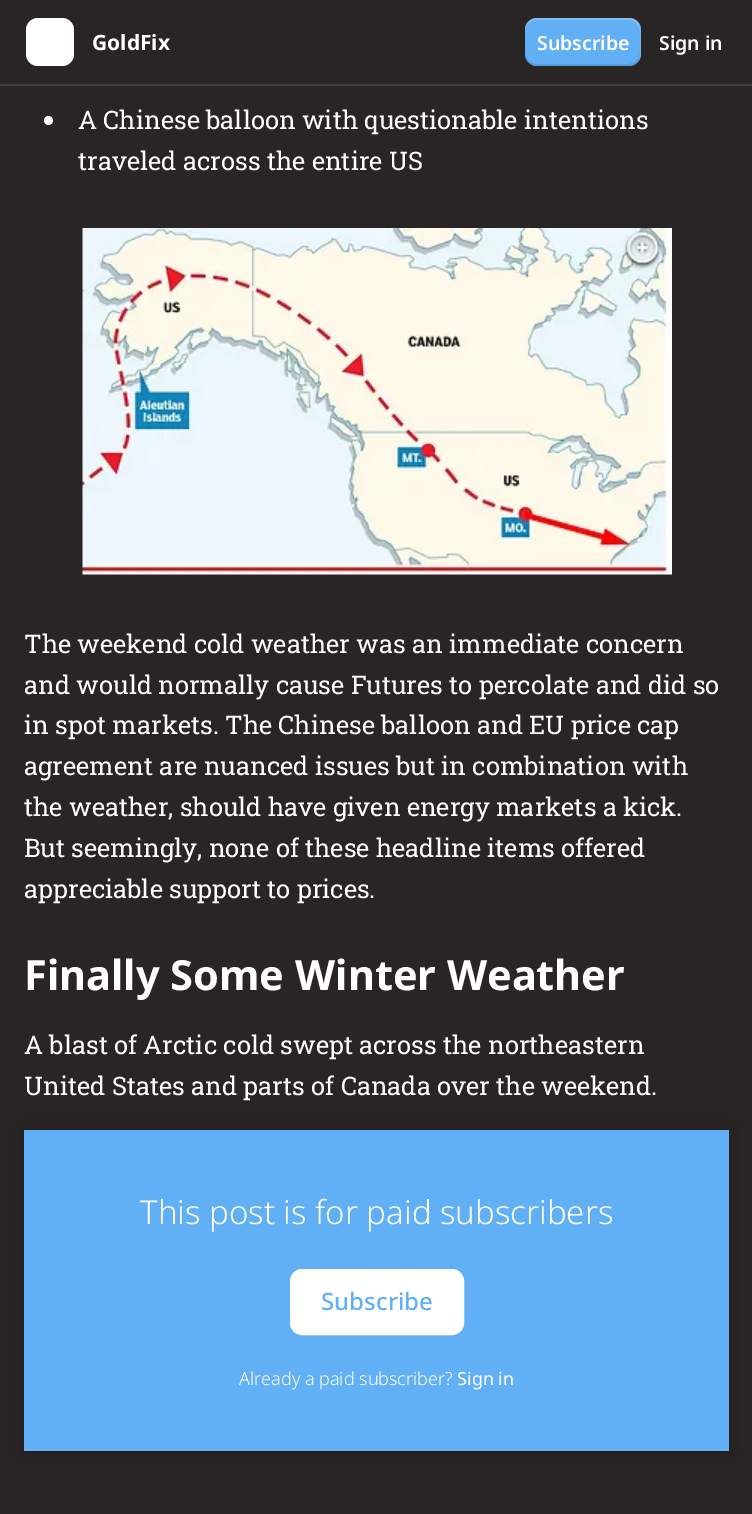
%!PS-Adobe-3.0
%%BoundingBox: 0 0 752 1514
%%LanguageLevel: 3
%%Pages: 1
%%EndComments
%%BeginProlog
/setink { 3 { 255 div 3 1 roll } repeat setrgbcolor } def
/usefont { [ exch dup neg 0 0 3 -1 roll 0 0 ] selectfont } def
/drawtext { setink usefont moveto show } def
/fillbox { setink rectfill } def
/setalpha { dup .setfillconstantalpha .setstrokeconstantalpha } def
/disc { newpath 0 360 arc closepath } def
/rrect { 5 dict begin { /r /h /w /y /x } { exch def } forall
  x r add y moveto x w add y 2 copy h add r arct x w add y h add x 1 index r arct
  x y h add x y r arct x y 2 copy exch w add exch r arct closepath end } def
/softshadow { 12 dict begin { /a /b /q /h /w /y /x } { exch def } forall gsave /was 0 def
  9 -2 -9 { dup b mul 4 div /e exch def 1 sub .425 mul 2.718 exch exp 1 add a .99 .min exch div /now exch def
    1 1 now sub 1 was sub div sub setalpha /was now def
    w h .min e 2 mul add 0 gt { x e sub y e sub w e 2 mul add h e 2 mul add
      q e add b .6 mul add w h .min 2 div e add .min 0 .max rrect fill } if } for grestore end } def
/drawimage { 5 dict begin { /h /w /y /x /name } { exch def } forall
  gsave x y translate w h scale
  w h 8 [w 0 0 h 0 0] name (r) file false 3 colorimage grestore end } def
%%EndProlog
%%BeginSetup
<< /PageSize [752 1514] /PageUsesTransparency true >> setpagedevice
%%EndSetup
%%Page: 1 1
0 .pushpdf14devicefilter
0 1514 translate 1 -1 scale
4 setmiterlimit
0 0 752 1514 41 37 36 fillbox
0 84 752 2 62 59 58 fillbox
255 255 255 setink
26 18 48 48 12 rrect fill
(GoldFix) 92 50 /NotoSans-Bold 21 255 255 255 drawtext
97 175 244 setink
525 18 116 48 12 rrect fill
0.1 setalpha
0 0 0 setink
525 52 moveto 525 54 lineto 525 61 530 66 537 66 curveto 629 66 lineto 636 66 641 61 641 54 curveto 641 30 lineto 641 28 640 25 639 23 curveto 640 28 lineto 640 52 lineto 640 59 635 64 628 64 curveto 537 64 lineto 530 64 525 59 525 52 curveto closepath fill
0.2 setalpha
255 255 255 setink
537 20 moveto 628 20 lineto 635 20 640 25 640 32 curveto 640 56 lineto 639 61 lineto 640 59 641 56 641 54 curveto 641 30 lineto 641 23 636 18 629 18 curveto 537 18 lineto 530 18 525 23 525 30 curveto 525 32 lineto 525 25 530 20 537 20 curveto closepath fill
1 setalpha
(Subscribe) 537 50 /NotoSans-SemiBold 19.5 255 255 255 drawtext
(Sign in) 659 50 /NotoSans-SemiBold 19.5 255 255 255 drawtext
48.5 120.5 4.5 disc fill
(A Chinese balloon with questionable intentions) 78 129 /RobotoSlab-Regular 25.5 255 255 255 drawtext
(traveled across the entire US) 78 170 /RobotoSlab-Regular 25.5 255 255 255 drawtext
(assets/img1.rgb) 82 228 590 347 drawimage
(The weekend cold weather was an immediate concern) 24 653 /RobotoSlab-Regular 25.5 255 255 255 drawtext
(and would normally cause Futures to percolate and did so) 24 694 /RobotoSlab-Regular 25.5 255 255 255 drawtext
(in spot markets. The Chinese balloon and EU price cap) 24 734 /RobotoSlab-Regular 25.5 255 255 255 drawtext
(agreement are nuanced issues but in combination with) 24 775 /RobotoSlab-Regular 25.5 255 255 255 drawtext
(the weather, should have given energy markets a kick.) 24 816 /RobotoSlab-Regular 25.5 255 255 255 drawtext
(But seemingly, none of these headline items offered) 24 857 /RobotoSlab-Regular 25.5 255 255 255 drawtext
(appreciable support to prices.) 24 898 /RobotoSlab-Regular 25.5 255 255 255 drawtext
(Finally Some Winter Weather) 24 990 /NotoSans-Bold 41.5 255 255 255 drawtext
(A blast of Arctic cold swept across the northeastern) 24 1054 /RobotoSlab-Regular 25.5 255 255 255 drawtext
(United States and parts of Canada over the weekend.) 24 1095 /RobotoSlab-Regular 25.5 255 255 255 drawtext
24 1130 705 321 97 175 244 fillbox
255 255 255 setink
291 1270 172 64 11 rrect gsave fill grestore
2 setlinewidth
stroke
gsave
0 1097 moveto 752 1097 lineto 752 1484 lineto 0 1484 lineto closepath 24 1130 moveto 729 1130 lineto 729 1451 lineto 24 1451 lineto closepath eoclip newpath
0 0 0 setink
24 1130 705 321 0 10.5 0.25 softshadow
grestore
(This post is for paid subscribers) 140 1224 /NotoSans-Light 33 255 255 255 drawtext
(Subscribe) 321 1310 /NotoSans-Medium 24 97 175 244 drawtext
(Already a paid subscriber?) 239 1385 /NotoSans-Light 18 255 255 255 drawtext
(Sign in) 457 1385 /NotoSans-Regular 18 255 255 255 drawtext
.poppdf14devicefilter showpage
%%EOF
